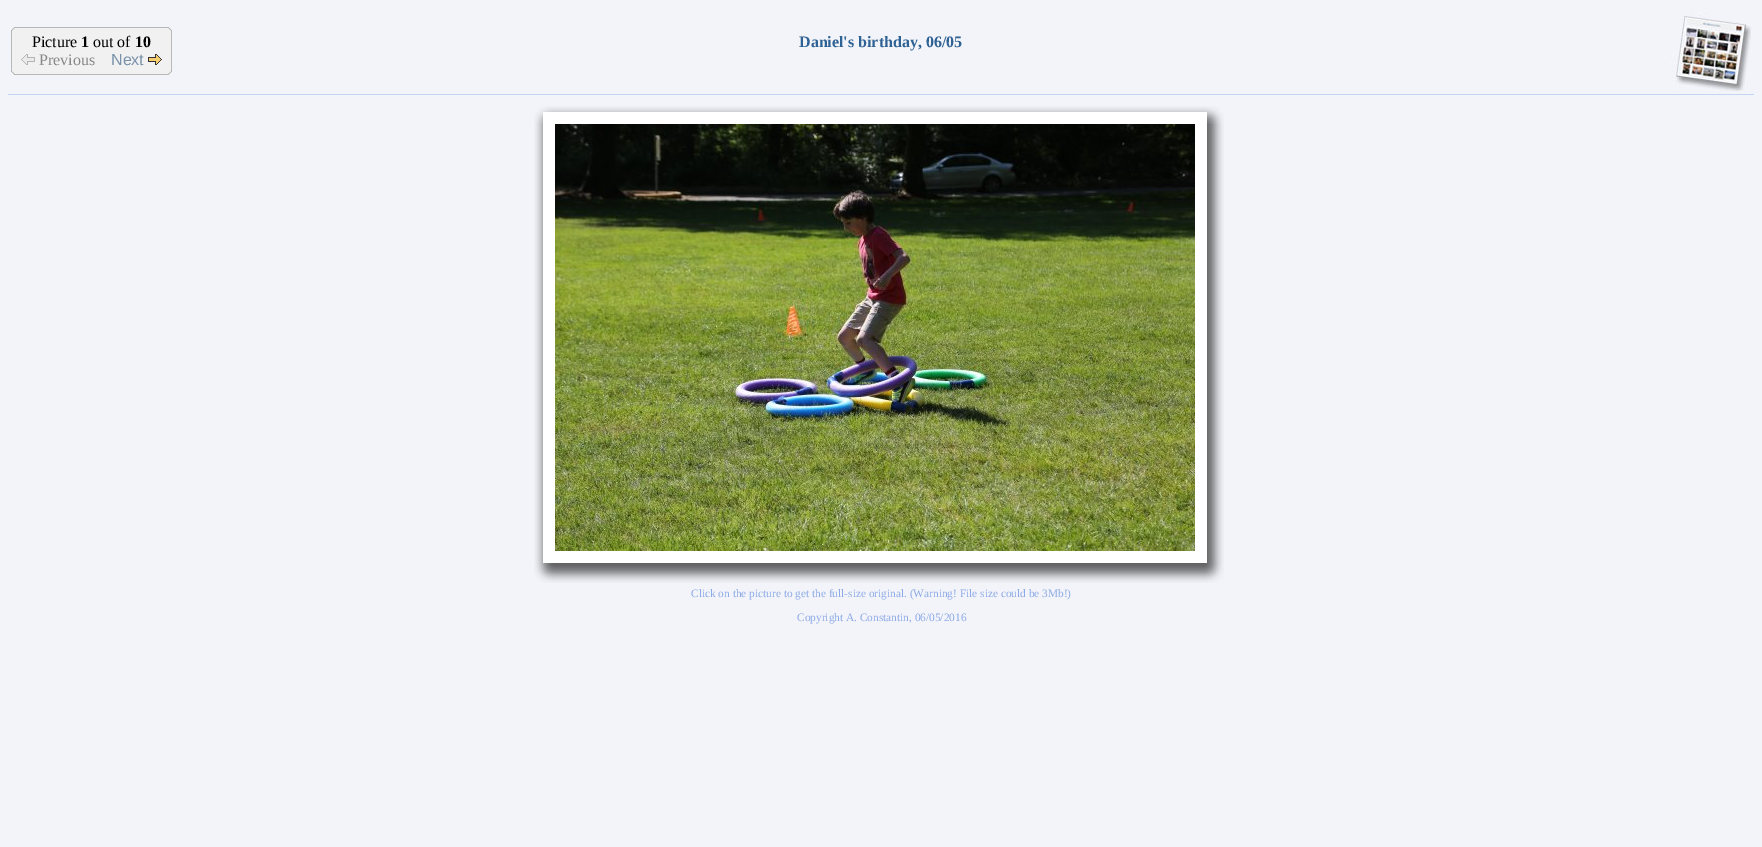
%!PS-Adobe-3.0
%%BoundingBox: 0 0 1762 847
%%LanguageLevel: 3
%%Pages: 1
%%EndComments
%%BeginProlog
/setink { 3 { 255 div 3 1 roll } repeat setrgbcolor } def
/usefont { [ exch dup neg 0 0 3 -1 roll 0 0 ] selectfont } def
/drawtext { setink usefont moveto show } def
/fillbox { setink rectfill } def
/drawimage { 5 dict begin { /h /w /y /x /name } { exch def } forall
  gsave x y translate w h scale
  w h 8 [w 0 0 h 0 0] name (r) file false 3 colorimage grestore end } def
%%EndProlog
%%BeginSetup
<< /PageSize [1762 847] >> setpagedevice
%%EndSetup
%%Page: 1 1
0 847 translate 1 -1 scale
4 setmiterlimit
0 0 1762 847 243 244 249 fillbox
(assets/img1.rgb) 11 27 10 10 drawimage
11 37 1 28 184 184 184 fillbox
12 37 9 28 241 241 241 fillbox
(assets/img2.rgb) 11 65 10 10 drawimage
21 27 141 1 184 184 184 fillbox
21 28 141 46 241 241 241 fillbox
(Picture) 32 47 /LiberationSerif-Regular 16 0 0 0 drawtext
(1) 81 47 /LiberationSerif-Bold 16 0 0 0 drawtext
(out of) 93 47 /LiberationSerif-Regular 16 0 0 0 drawtext
(10) 135 47 /LiberationSerif-Bold 16 0 0 0 drawtext
(assets/img3.rgb) 21 54 14 11 drawimage
(Previous) 39 65 /LiberationSerif-Regular 16 136 136 136 drawtext
(Next) 111 65 /LiberationSans-Regular 16 121 145 171 drawtext
(assets/img4.rgb) 148 54 14 11 drawimage
21 74 141 1 184 184 184 fillbox
(assets/img5.rgb) 162 27 10 10 drawimage
162 37 9 28 241 241 241 fillbox
171 37 1 28 184 184 184 fillbox
(assets/img6.rgb) 162 65 10 10 drawimage
(Daniel's birthday, 06/05) 799 47 /LiberationSerif-Bold 16 46 97 148 drawtext
(assets/img7.rgb) 1671 12 80 79 drawimage
8 94 1746 1 196 212 243 fillbox
(assets/img8.rgb) 538 106 17 6 drawimage
(assets/img9.rgb) 555 106 640 6 drawimage
(assets/img10.rgb) 1195 106 25 6 drawimage
(assets/img11.rgb) 534 112 9 12 drawimage
543 112 664 12 255 255 255 fillbox
(assets/img12.rgb) 1207 112 17 12 drawimage
(assets/img13.rgb) 534 124 9 427 drawimage
543 124 12 427 255 255 255 fillbox
(assets/img14.rgb) 555 124 640 427 drawimage
1195 124 12 427 255 255 255 fillbox
(assets/img15.rgb) 1207 124 17 427 drawimage
(assets/img16.rgb) 534 551 9 12 drawimage
543 551 664 12 255 255 255 fillbox
(assets/img17.rgb) 1207 551 17 12 drawimage
(assets/img18.rgb) 534 563 21 20 drawimage
(assets/img19.rgb) 555 563 640 20 drawimage
(assets/img20.rgb) 1195 563 29 20 drawimage
(Click on the picture to get the full-size original. \(Warning! File size could be 3Mb!\)) 691 597 /LiberationSerif-Regular 11.35 140 170 231 drawtext
(Copyright A. Constantin, 06/05/2016) 797 621 /LiberationSerif-Regular 11.35 140 170 231 drawtext
showpage
%%EOF
